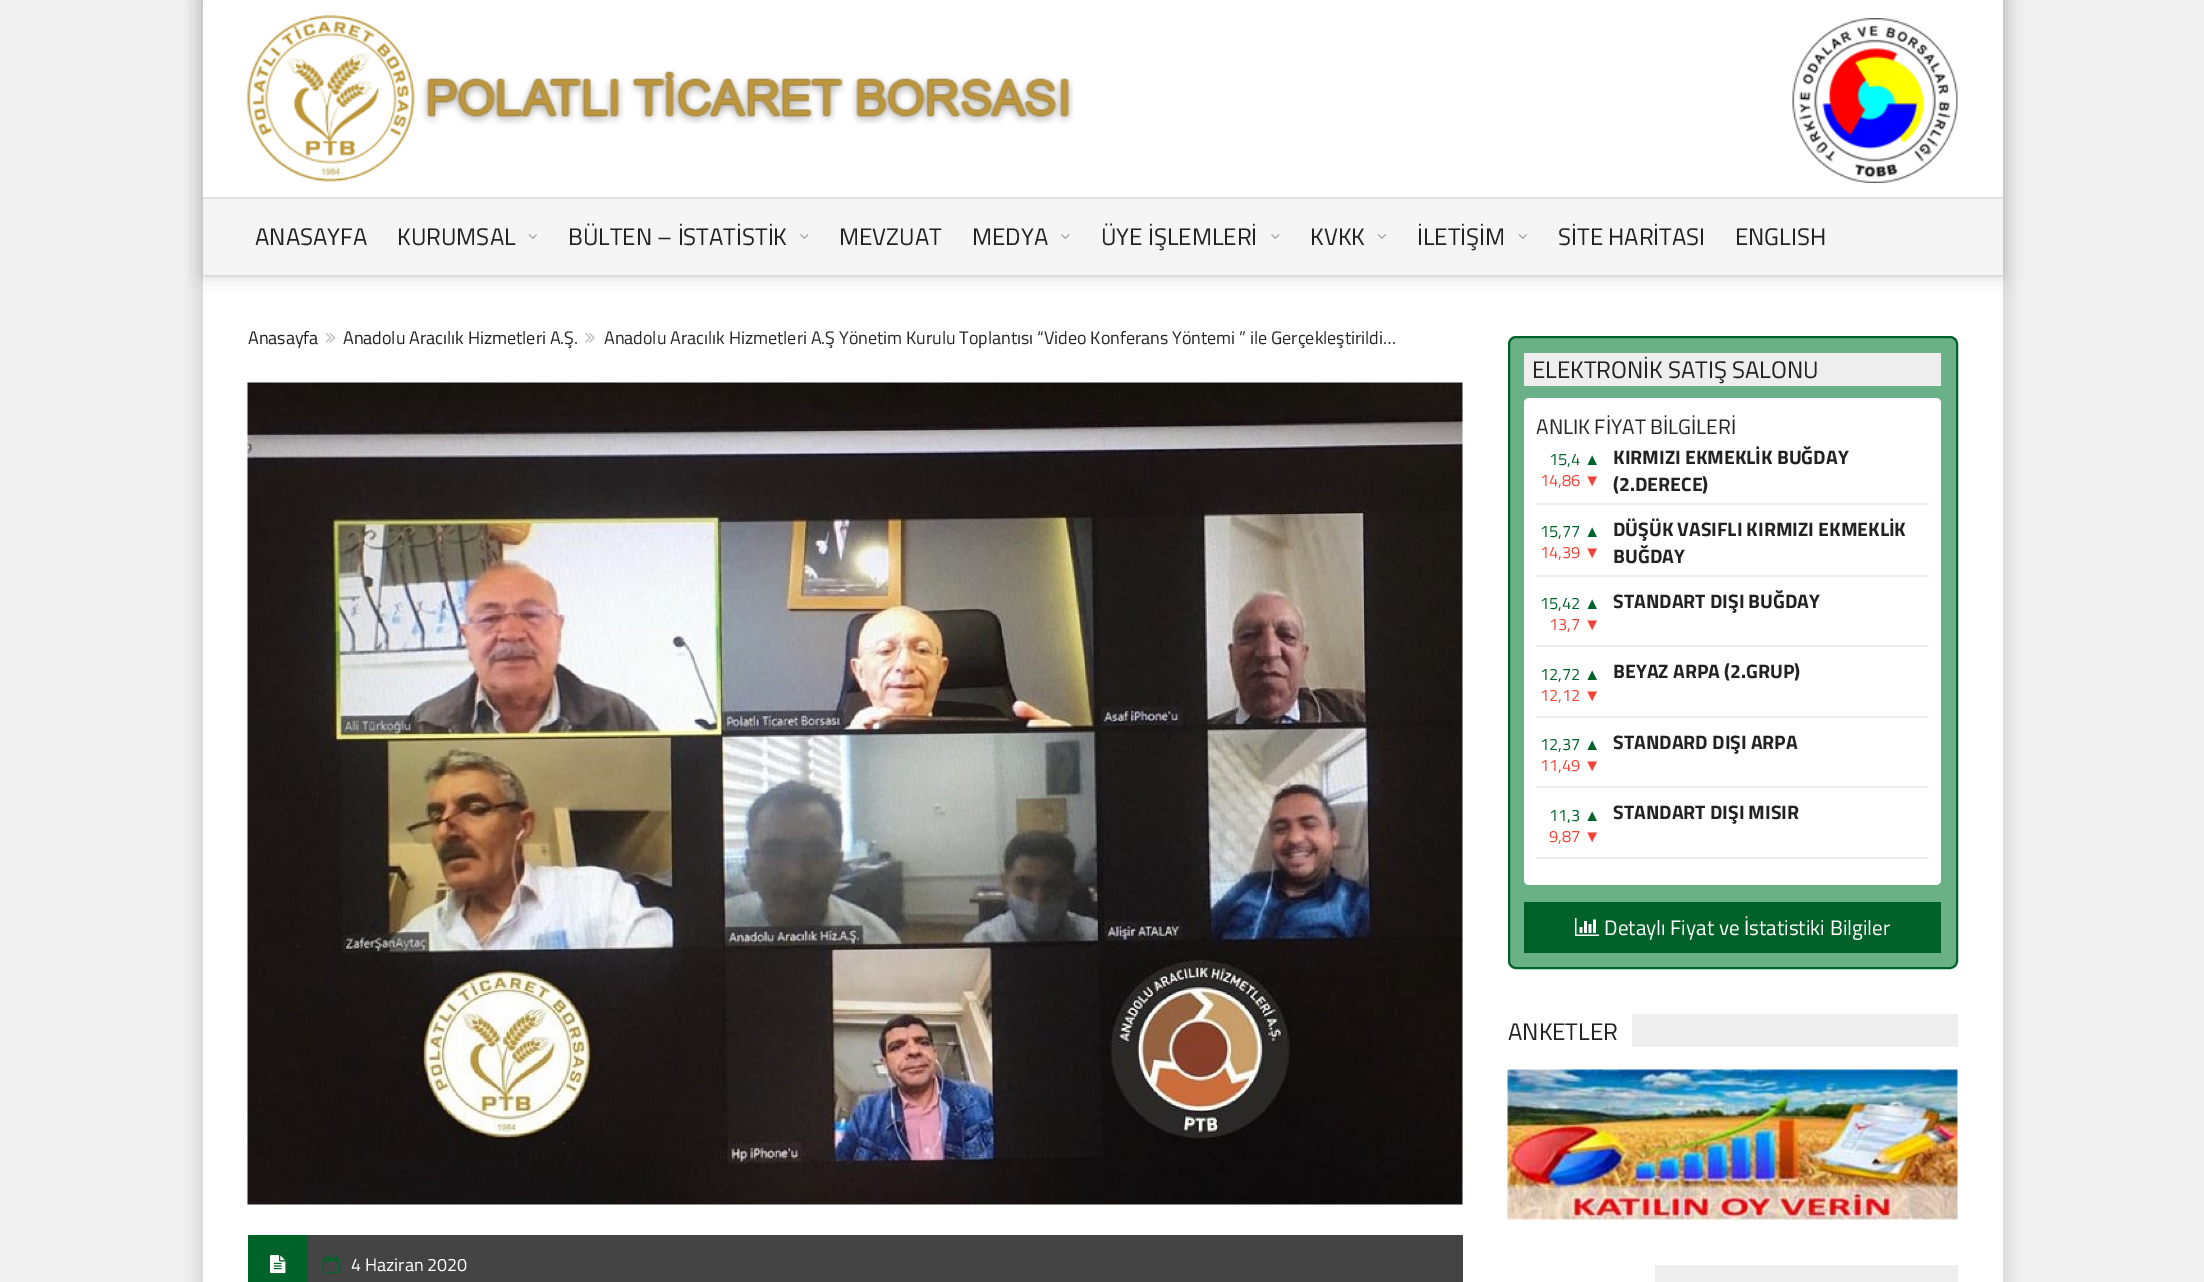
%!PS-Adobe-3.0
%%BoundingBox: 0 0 2204 1282
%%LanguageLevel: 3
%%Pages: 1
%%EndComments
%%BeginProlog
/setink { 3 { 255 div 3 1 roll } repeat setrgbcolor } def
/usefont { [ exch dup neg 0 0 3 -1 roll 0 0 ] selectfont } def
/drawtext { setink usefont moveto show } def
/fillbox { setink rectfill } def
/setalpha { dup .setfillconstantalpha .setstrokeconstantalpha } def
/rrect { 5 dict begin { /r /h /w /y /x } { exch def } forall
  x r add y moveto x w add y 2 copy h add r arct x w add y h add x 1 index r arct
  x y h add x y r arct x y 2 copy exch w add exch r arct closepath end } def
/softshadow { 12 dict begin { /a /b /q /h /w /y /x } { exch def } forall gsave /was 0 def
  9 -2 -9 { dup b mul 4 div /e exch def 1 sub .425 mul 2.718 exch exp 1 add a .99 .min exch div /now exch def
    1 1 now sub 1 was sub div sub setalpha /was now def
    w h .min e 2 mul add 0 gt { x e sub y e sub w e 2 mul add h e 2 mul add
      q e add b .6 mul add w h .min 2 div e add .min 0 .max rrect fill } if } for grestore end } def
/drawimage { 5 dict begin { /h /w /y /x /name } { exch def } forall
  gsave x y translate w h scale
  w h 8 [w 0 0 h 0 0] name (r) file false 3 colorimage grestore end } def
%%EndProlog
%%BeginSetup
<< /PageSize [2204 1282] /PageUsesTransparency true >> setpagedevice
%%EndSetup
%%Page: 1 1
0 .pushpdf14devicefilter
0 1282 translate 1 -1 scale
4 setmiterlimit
0 0 2204 1282 241 241 241 fillbox
0 0 0 setink
195 -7 1815 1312 0 7.5 0.1 softshadow
203 277 1800 1005 255 255 255 fillbox
34 34 34 setink
203 0 1800 276 0 7.5 0.2 softshadow
203 0 1800 197 255 255 255 fillbox
(assets/img1.rgb) 247 15 827 167 drawimage
(assets/img2.rgb) 1792 18 166 165 drawimage
203 199 1800 76 245 245 245 fillbox
203 197 1800 2 226 226 226 fillbox
203 275 1800 2 224 221 221 fillbox
(ANASAYFA) 255 245 /TitilliumWeb-Regular 24 34 34 34 drawtext
(KURUMSAL) 397 245 /TitilliumWeb-Regular 24 34 34 34 drawtext
(assets/img3.rgb) 528 234 9 5 drawimage
(BÜLTEN – İSTATİSTİK) 568 245 /TitilliumWeb-Regular 24 34 34 34 drawtext
(assets/img4.rgb) 800 234 9 5 drawimage
(MEVZUAT) 839 245 /TitilliumWeb-Regular 24 34 34 34 drawtext
(MEDYA) 972 245 /TitilliumWeb-Regular 24 34 34 34 drawtext
(assets/img4.rgb) 1061 234 9 5 drawimage
(ÜYE İŞLEMLERİ) 1101 245 /TitilliumWeb-Regular 24 34 34 34 drawtext
(assets/img4.rgb) 1271 234 9 5 drawimage
(KVKK) 1310 245 /TitilliumWeb-Regular 24 34 34 34 drawtext
(assets/img3.rgb) 1377 234 9 5 drawimage
(İLETİŞİM) 1417 245 /TitilliumWeb-Regular 24 34 34 34 drawtext
(assets/img3.rgb) 1518 234 9 5 drawimage
(SİTE HARİTASI) 1558 245 /TitilliumWeb-Regular 24 34 34 34 drawtext
(ENGLISH) 1735 245 /TitilliumWeb-Regular 24 34 34 34 drawtext
(Anasayfa) 248 344 /TitilliumWeb-Regular 18 34 34 34 drawtext
(assets/img5.rgb) 325 332 11 11 drawimage
(Anadolu Aracılık Hizmetleri A.Ş.) 343 344 /TitilliumWeb-Regular 18 34 34 34 drawtext
(assets/img6.rgb) 585 332 10 11 drawimage
(Anadolu Aracılık Hizmetleri A.Ş Yönetim Kurulu Toplantısı “Video Konferans Yöntemi ” ile Gerçekleştirildi…) 604 344 /TitilliumWeb-Regular 18 40 40 40 drawtext
(assets/img7.rgb) 247 382 1216 823 drawimage
308 1235 1155 47 68 68 68 fillbox
248 1235 60 47 0 99 41 fillbox
(assets/img8.rgb) 270 1255 16 19 drawimage
(assets/img9.rgb) 322 1255 18 19 drawimage
(4 Haziran 2020) 351 1271 /TitilliumWeb-Regular 18 255 255 255 drawtext
107 177 136 setink
1509 337 448 631 7 rrect gsave fill grestore
0 98 41 setink
2 setlinewidth
stroke
1524 353 417 33 238 238 238 fillbox
(ELEKTRONİK SATIŞ SALONU) 1532 378 /TitilliumWeb-Regular 24 34 34 34 drawtext
255 255 255 setink
1524 398 417 487 5 rrect fill
(ANLIK FİYAT BİLGİLERİ) 1536 434 /TitilliumWeb-Regular 21 40 40 40 drawtext
1536 503 393 2 239 239 239 fillbox
(15,4) 1549 465 /TitilliumWeb-Regular 16.5 0 99 41 drawtext
(▲) 1584 465 /LiberationSans-Regular 16.5 0 99 41 drawtext
(KIRMIZI EKMEKLİK BUĞDAY) 1613 464 /TitilliumWeb-Bold 19.5 34 34 34 drawtext
(\(2.DERECE\)) 1613 491 /TitilliumWeb-Bold 19.5 34 34 34 drawtext
(14,86) 1540 486 /TitilliumWeb-Regular 16.5 244 67 54 drawtext
(▼) 1584 486 /LiberationSans-Regular 16.5 244 67 54 drawtext
1536 575 393 2 239 239 239 fillbox
(15,77) 1540 537 /TitilliumWeb-Regular 16.5 0 99 41 drawtext
(▲) 1584 537 /LiberationSans-Regular 16.5 0 99 41 drawtext
(DÜŞÜK VASIFLI KIRMIZI EKMEKLİK) 1613 536 /TitilliumWeb-Bold 19.5 34 34 34 drawtext
(BUĞDAY) 1613 563 /TitilliumWeb-Bold 19.5 34 34 34 drawtext
(14,39) 1540 558 /TitilliumWeb-Regular 16.5 244 67 54 drawtext
(▼) 1584 558 /LiberationSans-Regular 16.5 244 67 54 drawtext
1536 645 393 2 239 239 239 fillbox
(15,42) 1540 609 /TitilliumWeb-Regular 16.5 0 99 41 drawtext
(▲) 1584 609 /LiberationSans-Regular 16.5 0 99 41 drawtext
(STANDART DIŞI BUĞDAY) 1613 608 /TitilliumWeb-Bold 19.5 34 34 34 drawtext
(13,7) 1549 630 /TitilliumWeb-Regular 16.5 244 67 54 drawtext
(▼) 1584 630 /LiberationSans-Regular 16.5 244 67 54 drawtext
1536 716 393 2 239 239 239 fillbox
(12,72) 1540 680 /TitilliumWeb-Regular 16.5 0 99 41 drawtext
(▲) 1584 680 /LiberationSans-Regular 16.5 0 99 41 drawtext
(BEYAZ ARPA \(2.GRUP\)) 1613 678 /TitilliumWeb-Bold 19.5 34 34 34 drawtext
(12,12) 1540 701 /TitilliumWeb-Regular 16.5 244 67 54 drawtext
(▼) 1584 701 /LiberationSans-Regular 16.5 244 67 54 drawtext
1536 786 393 2 239 239 239 fillbox
(12,37) 1540 750 /TitilliumWeb-Regular 16.5 0 99 41 drawtext
(▲) 1584 750 /LiberationSans-Regular 16.5 0 99 41 drawtext
(STANDARD DIŞI ARPA) 1613 749 /TitilliumWeb-Bold 19.5 34 34 34 drawtext
(11,49) 1540 771 /TitilliumWeb-Regular 16.5 244 67 54 drawtext
(▼) 1584 771 /LiberationSans-Regular 16.5 244 67 54 drawtext
1536 857 393 2 239 239 239 fillbox
(11,3) 1549 821 /TitilliumWeb-Regular 16.5 0 99 41 drawtext
(▲) 1584 821 /LiberationSans-Regular 16.5 0 99 41 drawtext
(STANDART DIŞI MISIR) 1613 819 /TitilliumWeb-Bold 19.5 34 34 34 drawtext
(9,87) 1549 842 /TitilliumWeb-Regular 16.5 244 67 54 drawtext
(▼) 1584 842 /LiberationSans-Regular 16.5 244 67 54 drawtext
1524 902 417 51 0 98 41 fillbox
(assets/img10.rgb) 1575 918 24 18 drawimage
(Detaylı Fiyat ve İstatistiki Bilgiler) 1604 935 /TitilliumWeb-Regular 21 255 255 255 drawtext
1632 1014 326 33 238 238 238 fillbox
(ANKETLER) 1508 1040 /TitilliumWeb-Regular 24 34 34 34 drawtext
(assets/img11.rgb) 1507 1069 451 151 drawimage
1655 1265 303 17 238 238 238 fillbox
.poppdf14devicefilter showpage
%%EOF
